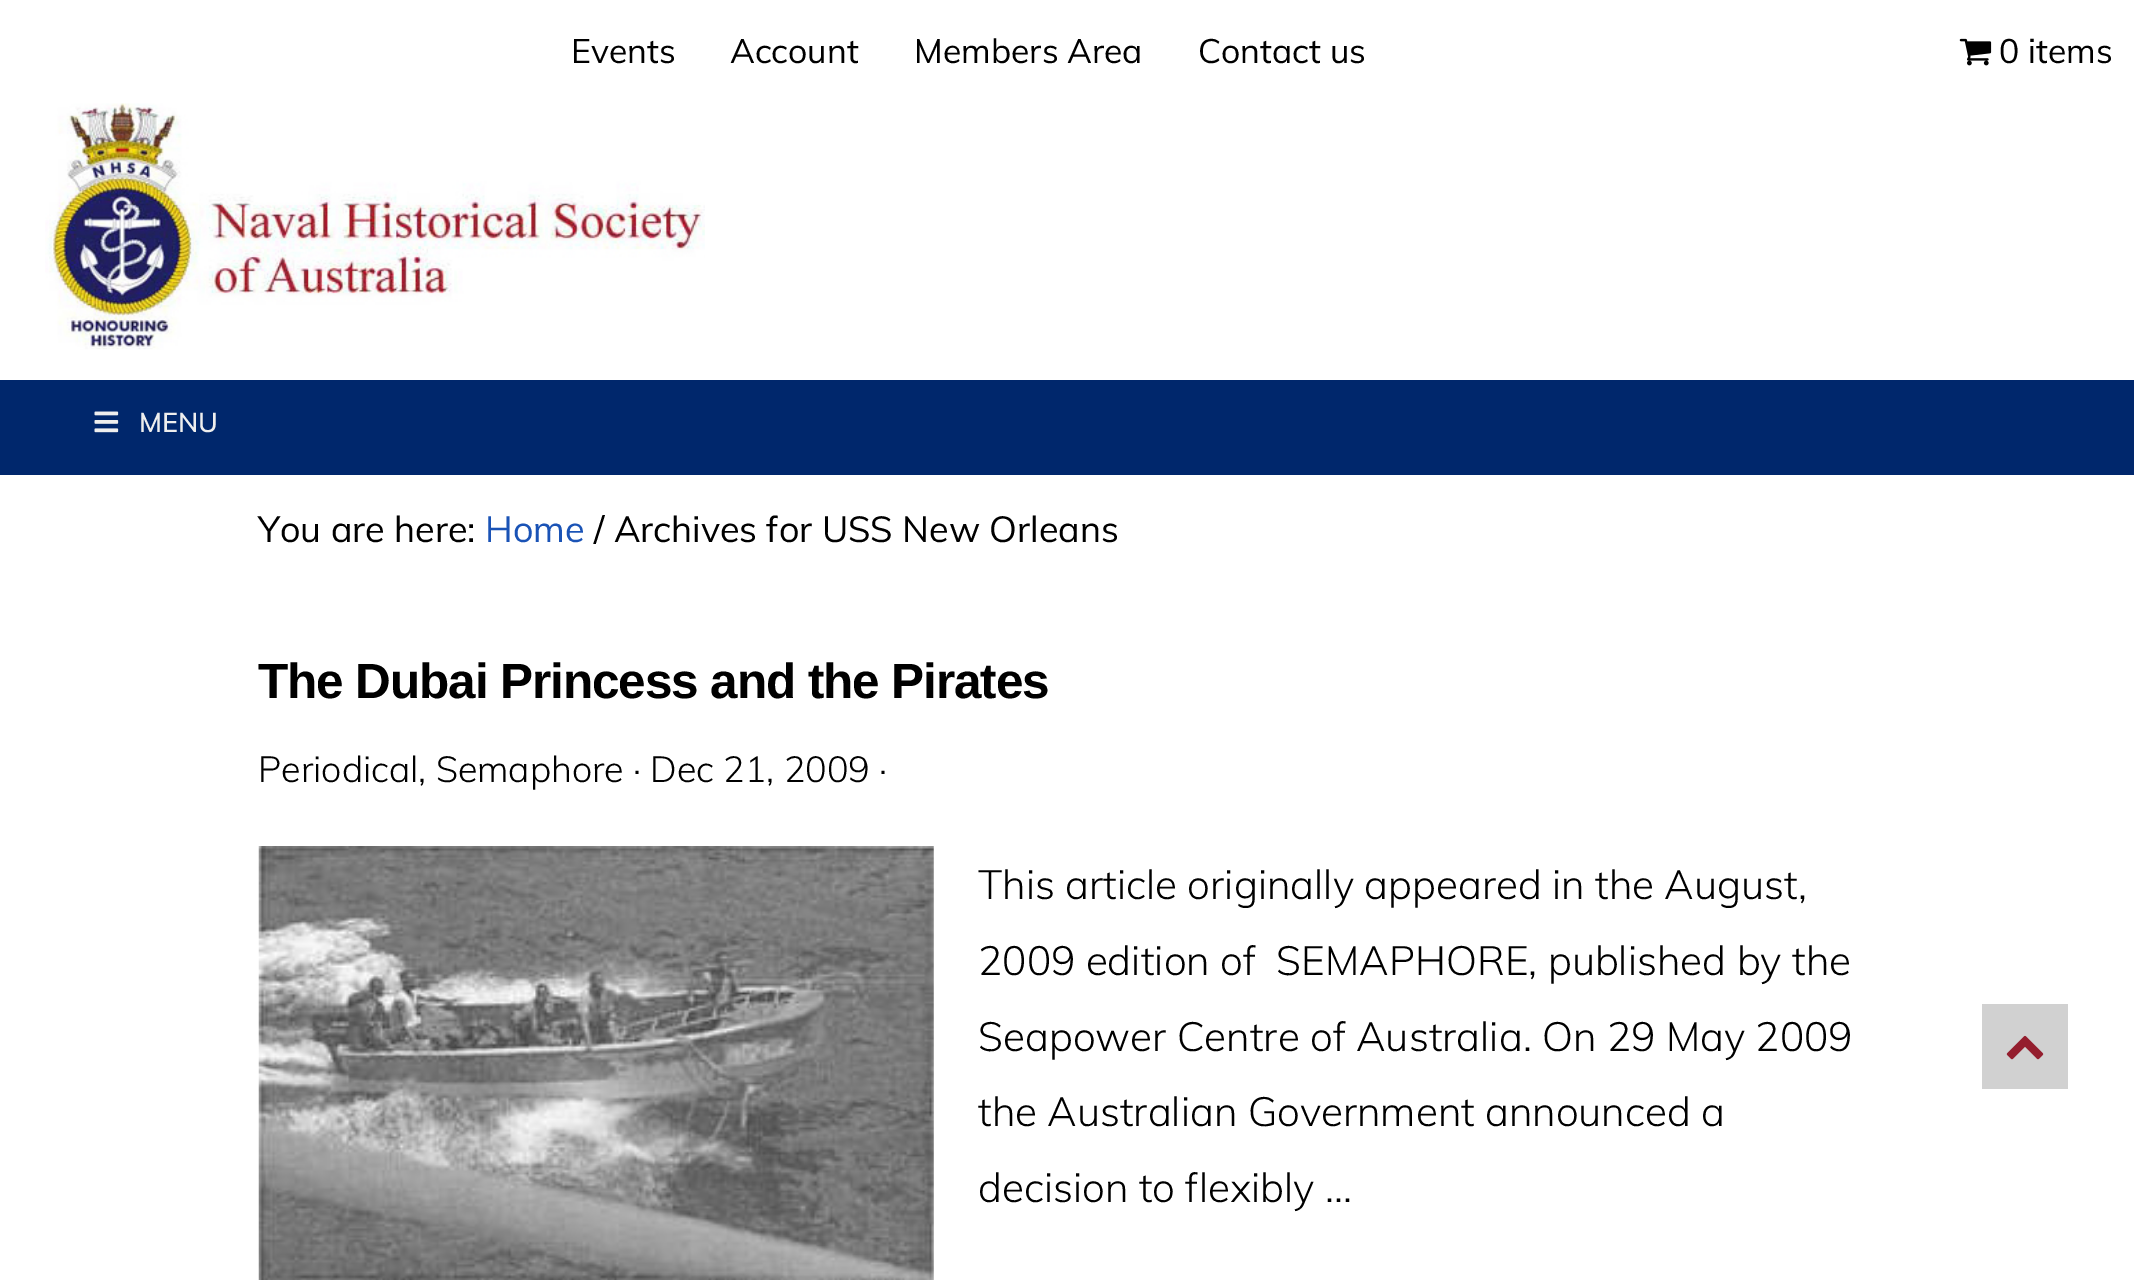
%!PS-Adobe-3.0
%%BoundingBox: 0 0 2134 1280
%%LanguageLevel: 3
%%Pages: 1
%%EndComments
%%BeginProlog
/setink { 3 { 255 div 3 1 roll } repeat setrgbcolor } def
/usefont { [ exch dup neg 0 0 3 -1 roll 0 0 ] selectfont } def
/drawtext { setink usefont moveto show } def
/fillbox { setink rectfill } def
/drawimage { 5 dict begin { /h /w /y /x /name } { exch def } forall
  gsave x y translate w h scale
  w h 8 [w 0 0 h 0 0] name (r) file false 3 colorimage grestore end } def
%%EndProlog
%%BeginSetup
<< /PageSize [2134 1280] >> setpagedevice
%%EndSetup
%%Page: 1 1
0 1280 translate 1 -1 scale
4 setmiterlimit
0 0 2134 1280 255 255 255 fillbox
(Events) 571 63 /Muli-Regular 33.75 0 0 0 drawtext
(Account) 730 63 /Muli-Regular 33.75 0 0 0 drawtext
(Members Area) 914 63 /Muli-Regular 33.75 0 0 0 drawtext
(Contact us) 1198 63 /Muli-Regular 33.75 0 0 0 drawtext
(assets/img1.rgb) 1959 38 33 28 drawimage
(0 items) 1999 63 /Muli-Regular 33.75 0 0 0 drawtext
(assets/img2.rgb) 45 103 660 247 drawimage
0 380 2134 95 0 39 108 fillbox
(assets/img3.rgb) 94 411 25 22 drawimage
(MENU) 139 432 /Muli-SemiBold 27 238 238 238 drawtext
(You are here:) 258 542 /Muli-Regular 36 0 0 0 drawtext
(Home) 485 542 /Muli-Regular 36 26 83 182 drawtext
(/ Archives for USS New Orleans) 594 542 /Muli-Regular 36 0 0 0 drawtext
/LiberationSans-Bold 49.5 usefont
258 698 moveto -1.1 0 (The Dubai Princess and the Pirates) ashow
(Periodical, Semaphore · Dec 21, 2009 ·) 258 782 /Muli-Light 36 0 0 0 drawtext
(assets/img4.rgb) 258 846 676 434 drawimage
(This article originally appeared in the August,) 978 899 /Muli-Light 40.5 0 0 0 drawtext
(2009 edition of  SEMAPHORE, published by the) 978 975 /Muli-Light 40.5 0 0 0 drawtext
(Seapower Centre of Australia. On 29 May 2009) 978 1051 /Muli-Light 40.5 0 0 0 drawtext
(the Australian Government announced a) 978 1126 /Muli-Light 40.5 0 0 0 drawtext
(decision to flexibly ...) 978 1202 /Muli-Light 40.5 0 0 0 drawtext
1982 1004 86 85 209 209 209 fillbox
(assets/img5.rgb) 2006 1035 38 25 drawimage
showpage
%%EOF
